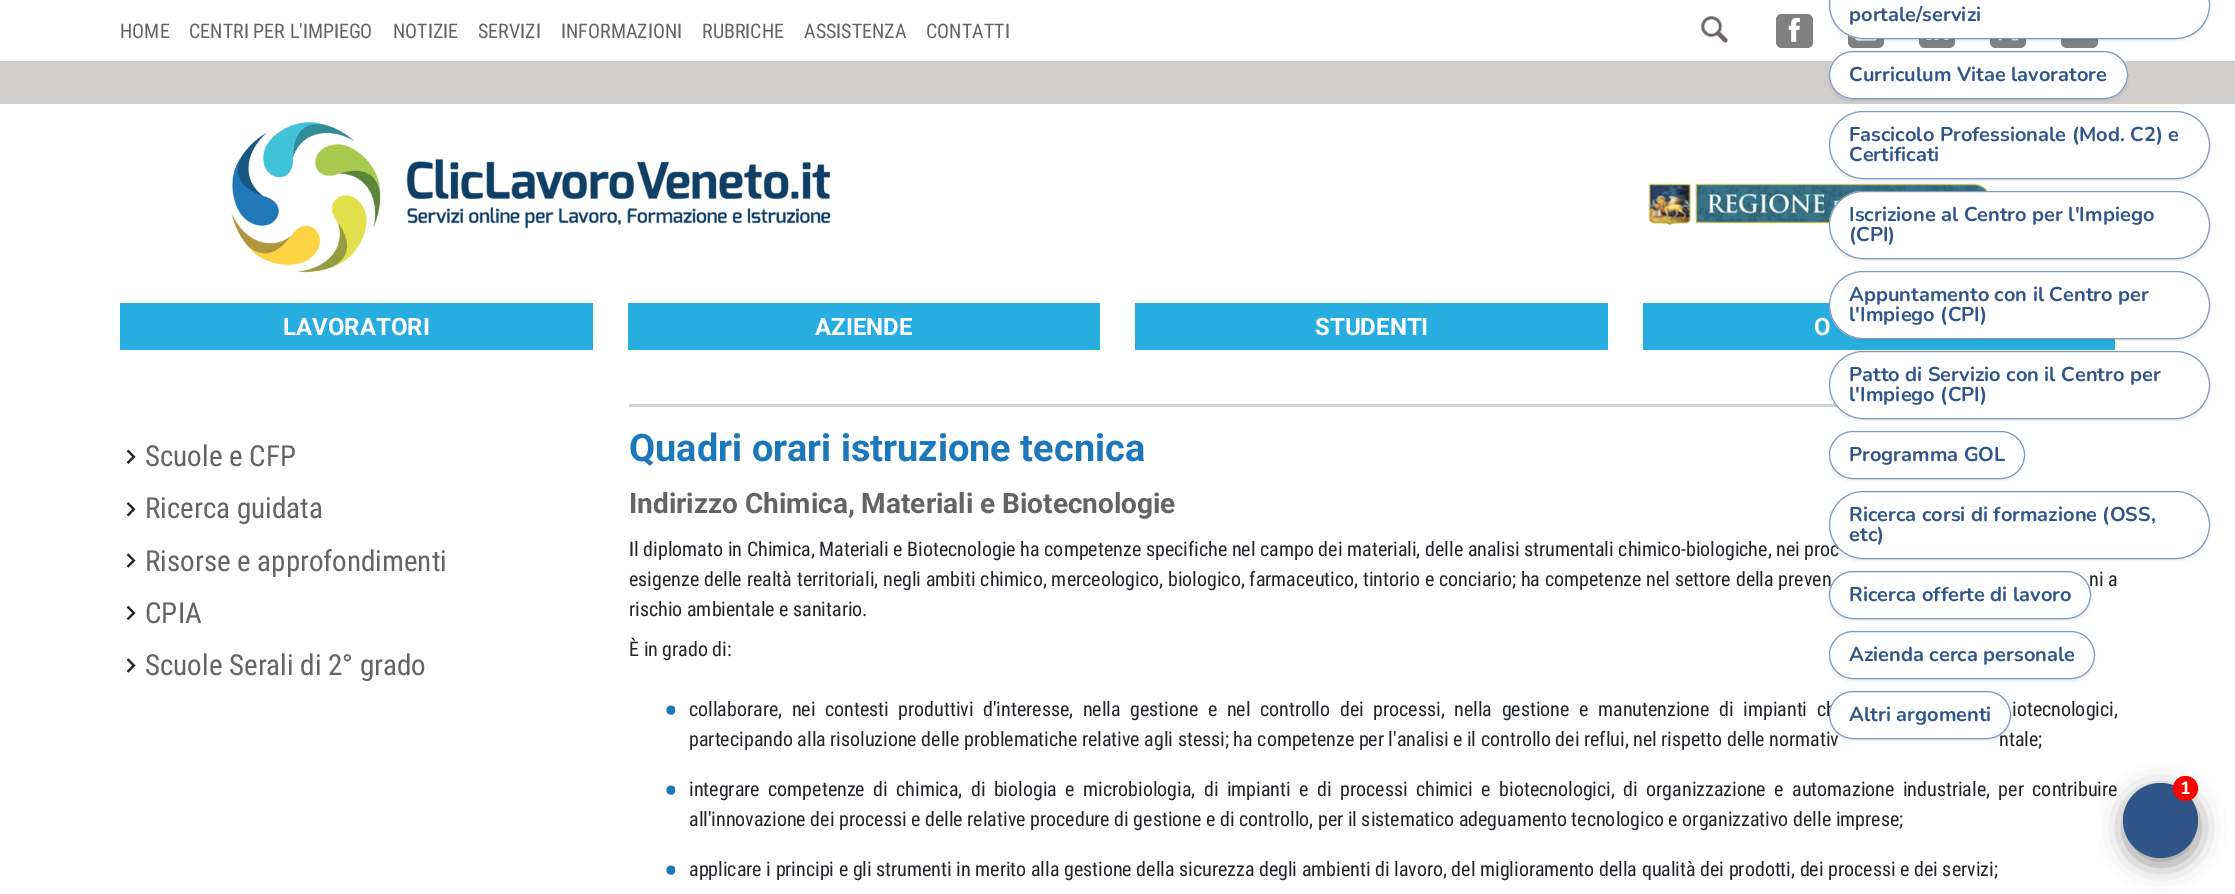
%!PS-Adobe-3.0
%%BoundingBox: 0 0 2235 894
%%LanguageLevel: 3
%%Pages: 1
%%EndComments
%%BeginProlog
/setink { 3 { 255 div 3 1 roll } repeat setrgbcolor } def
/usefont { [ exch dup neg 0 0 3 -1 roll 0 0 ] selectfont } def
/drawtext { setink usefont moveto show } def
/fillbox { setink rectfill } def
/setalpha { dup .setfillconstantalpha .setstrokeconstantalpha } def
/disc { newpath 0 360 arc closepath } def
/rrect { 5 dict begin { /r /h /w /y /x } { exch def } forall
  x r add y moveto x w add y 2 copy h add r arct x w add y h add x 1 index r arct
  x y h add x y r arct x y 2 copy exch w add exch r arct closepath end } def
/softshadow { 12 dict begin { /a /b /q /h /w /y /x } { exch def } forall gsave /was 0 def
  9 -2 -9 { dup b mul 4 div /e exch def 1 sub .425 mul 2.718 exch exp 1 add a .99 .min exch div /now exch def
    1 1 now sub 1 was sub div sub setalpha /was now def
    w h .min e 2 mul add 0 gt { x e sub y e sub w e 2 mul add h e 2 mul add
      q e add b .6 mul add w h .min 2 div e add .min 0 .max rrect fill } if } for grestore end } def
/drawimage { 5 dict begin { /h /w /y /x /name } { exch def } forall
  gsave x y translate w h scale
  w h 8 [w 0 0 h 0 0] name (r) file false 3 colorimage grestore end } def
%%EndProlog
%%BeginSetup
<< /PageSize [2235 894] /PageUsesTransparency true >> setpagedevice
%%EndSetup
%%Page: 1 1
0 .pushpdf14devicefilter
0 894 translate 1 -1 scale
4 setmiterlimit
0 0 2235 894 255 255 255 fillbox
128 128 128 setink
1848 14 36 34 6 rrect fill
(assets/img3.rgb) 1855 38 22 3 drawimage
1919 14 36 34 6 rrect fill
(assets/img4.rgb) 1926 39 23 1 drawimage
1990 14 36 34 6 rrect fill
(assets/img5.rgb) 1998 39 21 2 drawimage
2061 14 37 34 6 rrect fill
73 67 67 setink
1829 -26 381 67 33.5 1 0.1 softshadow
255 255 255 setink
1829 -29 381 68 34 rrect fill
0.6 setalpha
48 85 136 setink
1829.5 -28.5 380 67 33.5 rrect stroke
1 setalpha
(portale/servizi) 1849 21 /Nunito-Bold 20 48 85 136 drawtext
0 61 2235 43 207 206 205 fillbox
73 67 67 setink
1829 54 299 47 23.5 1 0.1 softshadow
255 255 255 setink
1829 51 299 48 24 rrect fill
0.6 setalpha
48 85 136 setink
1829.5 51.5 298 47 23.5 rrect stroke
1 setalpha
(Curriculum Vitae lavoratore) 1849 81 /Nunito-Bold 20 48 85 136 drawtext
(assets/img7.rgb) 1648 183 341 42 drawimage
73 67 67 setink
1829 114 381 67 33.5 1 0.1 softshadow
255 255 255 setink
1829 111 381 68 34 rrect fill
0.6 setalpha
48 85 136 setink
1829.5 111.5 380 67 33.5 rrect stroke
1 setalpha
(Fascicolo Professionale \(Mod. C2\) e) 1849 141 /Nunito-Bold 20 48 85 136 drawtext
(Certificati) 1849 161 /Nunito-Bold 20 48 85 136 drawtext
73 67 67 setink
1829 194 381 67 33.5 1 0.1 softshadow
255 255 255 setink
1829 191 381 68 34 rrect fill
0.6 setalpha
48 85 136 setink
1829.5 191.5 380 67 33.5 rrect stroke
1 setalpha
(Iscrizione al Centro per l'Impiego) 1849 221 /Nunito-Bold 20 48 85 136 drawtext
(\(CPI\)) 1849 241 /Nunito-Bold 20 48 85 136 drawtext
1643 303 472 47 40 173 225 fillbox
73 67 67 setink
1829 274 381 67 33.5 1 0.1 softshadow
(O) 1814 335 /Roboto-Bold 24 252 252 252 drawtext
255 255 255 setink
1829 271 381 68 34 rrect fill
0.6 setalpha
48 85 136 setink
1829.5 271.5 380 67 33.5 rrect stroke
1 setalpha
(Appuntamento con il Centro per) 1849 301 /Nunito-Bold 20 48 85 136 drawtext
(l'Impiego \(CPI\)) 1849 321 /Nunito-Bold 20 48 85 136 drawtext
629 404 1208 3 211 211 211 fillbox
73 67 67 setink
1829 354 381 67 33.5 1 0.1 softshadow
255 255 255 setink
1829 351 381 68 34 rrect fill
0.6 setalpha
48 85 136 setink
1829.5 351.5 380 67 33.5 rrect stroke
1 setalpha
(Patto di Servizio con il Centro per) 1849 381 /Nunito-Bold 20 48 85 136 drawtext
(l'Impiego \(CPI\)) 1849 401 /Nunito-Bold 20 48 85 136 drawtext
73 67 67 setink
1829 434 196 47 23.5 1 0.1 softshadow
255 255 255 setink
1829 431 196 48 24 rrect fill
0.6 setalpha
48 85 136 setink
1829.5 431.5 195 47 23.5 rrect stroke
1 setalpha
(Programma GOL) 1849 461 /Nunito-Bold 20 48 85 136 drawtext
73 67 67 setink
1829 494 381 67 33.5 1 0.1 softshadow
/RobotoCondensed-Regular 20 usefont
33 37 41 setink
629 556 moveto 0.1 0 32 (Il diplomato in Chimica, Materiali e Biotecnologie ha competenze specifiche nel campo dei materiali, delle analisi strumentali chimico-biologiche, nei proc) widthshow
255 255 255 setink
1829 491 381 68 34 rrect fill
0.6 setalpha
48 85 136 setink
1829.5 491.5 380 67 33.5 rrect stroke
1 setalpha
(Ricerca corsi di formazione \(OSS,) 1849 521 /Nunito-Bold 20 48 85 136 drawtext
(etc\)) 1849 541 /Nunito-Bold 20 48 85 136 drawtext
73 67 67 setink
1829 574 262 47 23.5 1 0.1 softshadow
/RobotoCondensed-Regular 20 usefont
33 37 41 setink
2089 586 moveto 0.25 0 32 (ni a) widthshow
255 255 255 setink
1829 571 262 48 24 rrect fill
0.6 setalpha
48 85 136 setink
1829.5 571.5 261 47 23.5 rrect stroke
1 setalpha
(Ricerca offerte di lavoro) 1849 601 /Nunito-Bold 20 48 85 136 drawtext
73 67 67 setink
1829 634 266 47 23.5 1 0.1 softshadow
255 255 255 setink
1829 631 266 48 24 rrect fill
0.6 setalpha
48 85 136 setink
1829.5 631.5 265 47 23.5 rrect stroke
1 setalpha
(Azienda cerca personale) 1849 661 /Nunito-Bold 20 48 85 136 drawtext
73 67 67 setink
1829 694 182 47 23.5 1 0.1 softshadow
/RobotoCondensed-Regular 20 usefont
33 37 41 setink
689 716 moveto 5 0 32 (collaborare, nei contesti produttivi d'interesse, nella gestione e nel controllo dei processi, nella gestione e manutenzione di impianti ch) widthshow
(partecipando alla risoluzione delle problematiche relative agli stessi; ha competenze per l'analisi e il controllo dei reflui, nel rispetto delle normativ) 689 746 /RobotoCondensed-Regular 20 33 37 41 drawtext
(ntale;) 1999 746 /RobotoCondensed-Regular 20 33 37 41 drawtext
255 255 255 setink
1829 691 182 48 24 rrect fill
0.6 setalpha
48 85 136 setink
1829.5 691.5 181 47 23.5 rrect stroke
1 setalpha
(Altri argomenti) 1849 721 /Nunito-Bold 20 48 85 136 drawtext
0 0 0 setink
2124 790 75 75 37.5 12.5 0.42 softshadow
48 85 136 setink
2160.5 820.5 37.5 disc fill
255 0 0 setink
2185.5 788.5 12.5 disc fill
(1) 2180 794 /Nunito-Bold 18 252 252 252 drawtext
(HOME) 120 38 /RobotoCondensed-Regular 20 100 100 100 drawtext
(CENTRI PER L'IMPIEGO) 189 38 /RobotoCondensed-Regular 20 100 100 100 drawtext
(NOTIZIE) 393 38 /RobotoCondensed-Regular 20 100 100 100 drawtext
(SERVIZI) 478 38 /RobotoCondensed-Regular 20 100 100 100 drawtext
(INFORMAZIONI) 561 38 /RobotoCondensed-Regular 20 100 100 100 drawtext
(RUBRICHE) 702 38 /RobotoCondensed-Regular 20 100 100 100 drawtext
(ASSISTENZA) 804 38 /RobotoCondensed-Regular 20 100 100 100 drawtext
(CONTATTI) 926 38 /RobotoCondensed-Regular 20 100 100 100 drawtext
(assets/img1.rgb) 1701 16 27 27 drawimage
128 128 128 setink
1776 14 37 34 6 rrect fill
(assets/img2.rgb) 1788 17 12 25 drawimage
(assets/img6.rgb) 231 122 600 151 drawimage
120 303 473 47 40 173 225 fillbox
(LAVORATORI) 283 335 /Roboto-Bold 24 252 252 252 drawtext
628 303 472 47 40 173 225 fillbox
(AZIENDE) 815 335 /Roboto-Bold 24 252 252 252 drawtext
1135 303 473 47 40 173 225 fillbox
(STUDENTI) 1315 335 /Roboto-Bold 24 252 252 252 drawtext
(assets/img8.rgb) 126 449 10 15 drawimage
(Scuole e CFP) 145 466 /RobotoCondensed-Regular 29 100 100 100 drawtext
(assets/img9.rgb) 126 502 10 15 drawimage
(Ricerca guidata) 145 518 /RobotoCondensed-Regular 29 100 100 100 drawtext
(assets/img10.rgb) 126 553 10 15 drawimage
(Risorse e approfondimenti) 145 571 /RobotoCondensed-Regular 29 100 100 100 drawtext
(assets/img11.rgb) 126 605 10 16 drawimage
(CPIA) 145 623 /RobotoCondensed-Regular 29 100 100 100 drawtext
(assets/img10.rgb) 126 658 10 15 drawimage
(Scuole Serali di 2° grado) 145 675 /RobotoCondensed-Regular 29 100 100 100 drawtext
(Quadri orari istruzione tecnica) 629 461 /Roboto-Bold 38 28 120 186 drawtext
(Indirizzo Chimica, Materiali e Biotecnologie) 629 513 /Roboto-Bold 28 100 100 100 drawtext
/RobotoCondensed-Regular 20 usefont
33 37 41 setink
629 586 moveto 0.25 0 32 (esigenze delle realtà territoriali, negli ambiti chimico, merceologico, biologico, farmaceutico, tintorio e conciario; ha competenze nel settore della preven) widthshow
(rischio ambientale e sanitario.) 629 616 /RobotoCondensed-Regular 20 33 37 41 drawtext
(È in grado di:) 629 656 /RobotoCondensed-Regular 20 33 37 41 drawtext
(•) 664 724 /Roboto-Bold 38 28 120 186 drawtext
/RobotoCondensed-Regular 20 usefont
33 37 41 setink
2012 716 moveto 5 0 32 (iotecnologici,) widthshow
(•) 664 804 /Roboto-Bold 38 28 120 186 drawtext
/RobotoCondensed-Regular 20 usefont
33 37 41 setink
689 796 moveto 3.9 0 32 (integrare competenze di chimica, di biologia e microbiologia, di impianti e di processi chimici e biotecnologici, di organizzazione e automazione industriale, per contribuire) widthshow
(all'innovazione dei processi e delle relative procedure di gestione e di controllo, per il sistematico adeguamento tecnologico e organizzativo delle imprese;) 689 826 /RobotoCondensed-Regular 20 33 37 41 drawtext
(•) 664 884 /Roboto-Bold 38 28 120 186 drawtext
(applicare i principi e gli strumenti in merito alla gestione della sicurezza degli ambienti di lavoro, del miglioramento della qualità dei prodotti, dei processi e dei servizi;) 689 876 /RobotoCondensed-Regular 20 33 37 41 drawtext
.poppdf14devicefilter showpage
%%EOF
